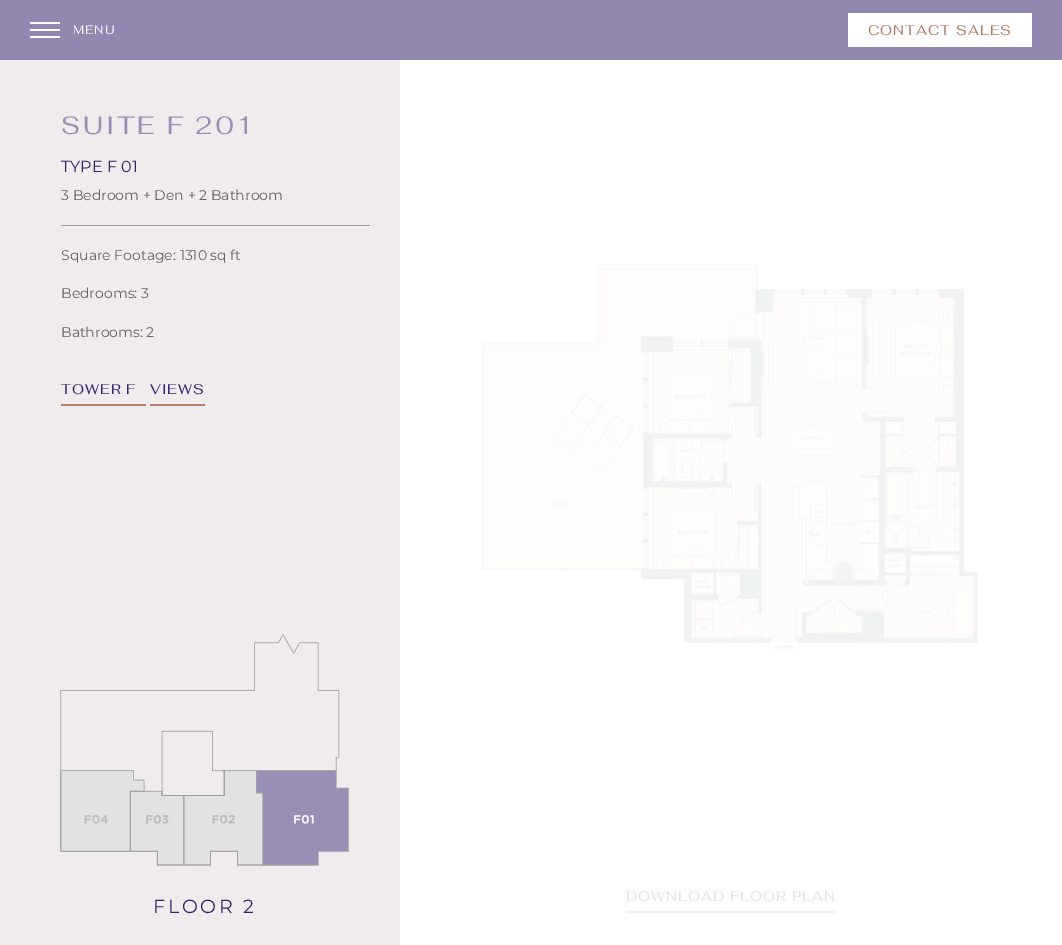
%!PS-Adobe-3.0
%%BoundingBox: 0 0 1062 945
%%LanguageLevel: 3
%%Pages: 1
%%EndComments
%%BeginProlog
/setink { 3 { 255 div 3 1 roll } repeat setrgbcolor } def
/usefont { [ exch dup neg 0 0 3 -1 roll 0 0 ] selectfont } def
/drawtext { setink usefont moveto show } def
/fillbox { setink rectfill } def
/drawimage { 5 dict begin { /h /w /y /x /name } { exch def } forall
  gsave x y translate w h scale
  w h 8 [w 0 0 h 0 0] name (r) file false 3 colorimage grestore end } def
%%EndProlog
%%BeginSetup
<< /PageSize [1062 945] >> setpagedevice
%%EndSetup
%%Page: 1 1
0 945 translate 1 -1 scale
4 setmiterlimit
0 0 1062 945 255 255 255 fillbox
0 0 1062 60 146 135 177 fillbox
30 22 30 2 255 255 255 fillbox
30 29 30 2 255 255 255 fillbox
30 36 30 2 255 255 255 fillbox
/Fahkwang-Regular 12 usefont
73 34 moveto 1 0 (MENU) ashow
848 13 184 34 255 255 255 fillbox
/Fahkwang-Regular 14 usefont
175 121 97 setink
868 35 moveto 1 0 (CONTACT SALES) ashow
0 60 400 885 240 235 236 fillbox
/Fahkwang-Regular 25 usefont
153 143 182 setink
61 134 moveto 2.75 0 (SUITE F 201) ashow
(TYPE F 01) 61 172 /Montserrat-Regular 16 54 34 108 drawtext
(3 Bedroom + Den + 2 Bathroom) 61 200 /Montserrat-Regular 14 99 98 98 drawtext
61 225 309 1 158 157 158 fillbox
(Square Footage: 1310 sq ft) 61 260 /Montserrat-Regular 14 99 98 98 drawtext
(Bedrooms: 3) 61 298 /Montserrat-Regular 14 99 98 98 drawtext
(Bathrooms: 2) 61 337 /Montserrat-Regular 14 99 98 98 drawtext
/Fahkwang-Regular 14 usefont
54 34 108 setink
61 394 moveto 1 0 (TOWER F) ashow
61 404 85 2 180 130 108 fillbox
54 34 108 setink
150 394 moveto 1 0 (VIEWS) ashow
150 404 55 2 180 130 108 fillbox
(assets/img1.rgb) 60 634 289 232 drawimage
/Montserrat-Regular 19 usefont
54 34 108 setink
153 913 moveto 2.75 0 (FLOOR 2) ashow
(assets/img2.rgb) 482 264 496 386 drawimage
/Fahkwang-Regular 14 usefont
227 225 235 setink
626 901 moveto 1 0 (DOWNLOAD FLOOR PLAN) ashow
626 911 210 2 245 238 235 fillbox
showpage
%%EOF
